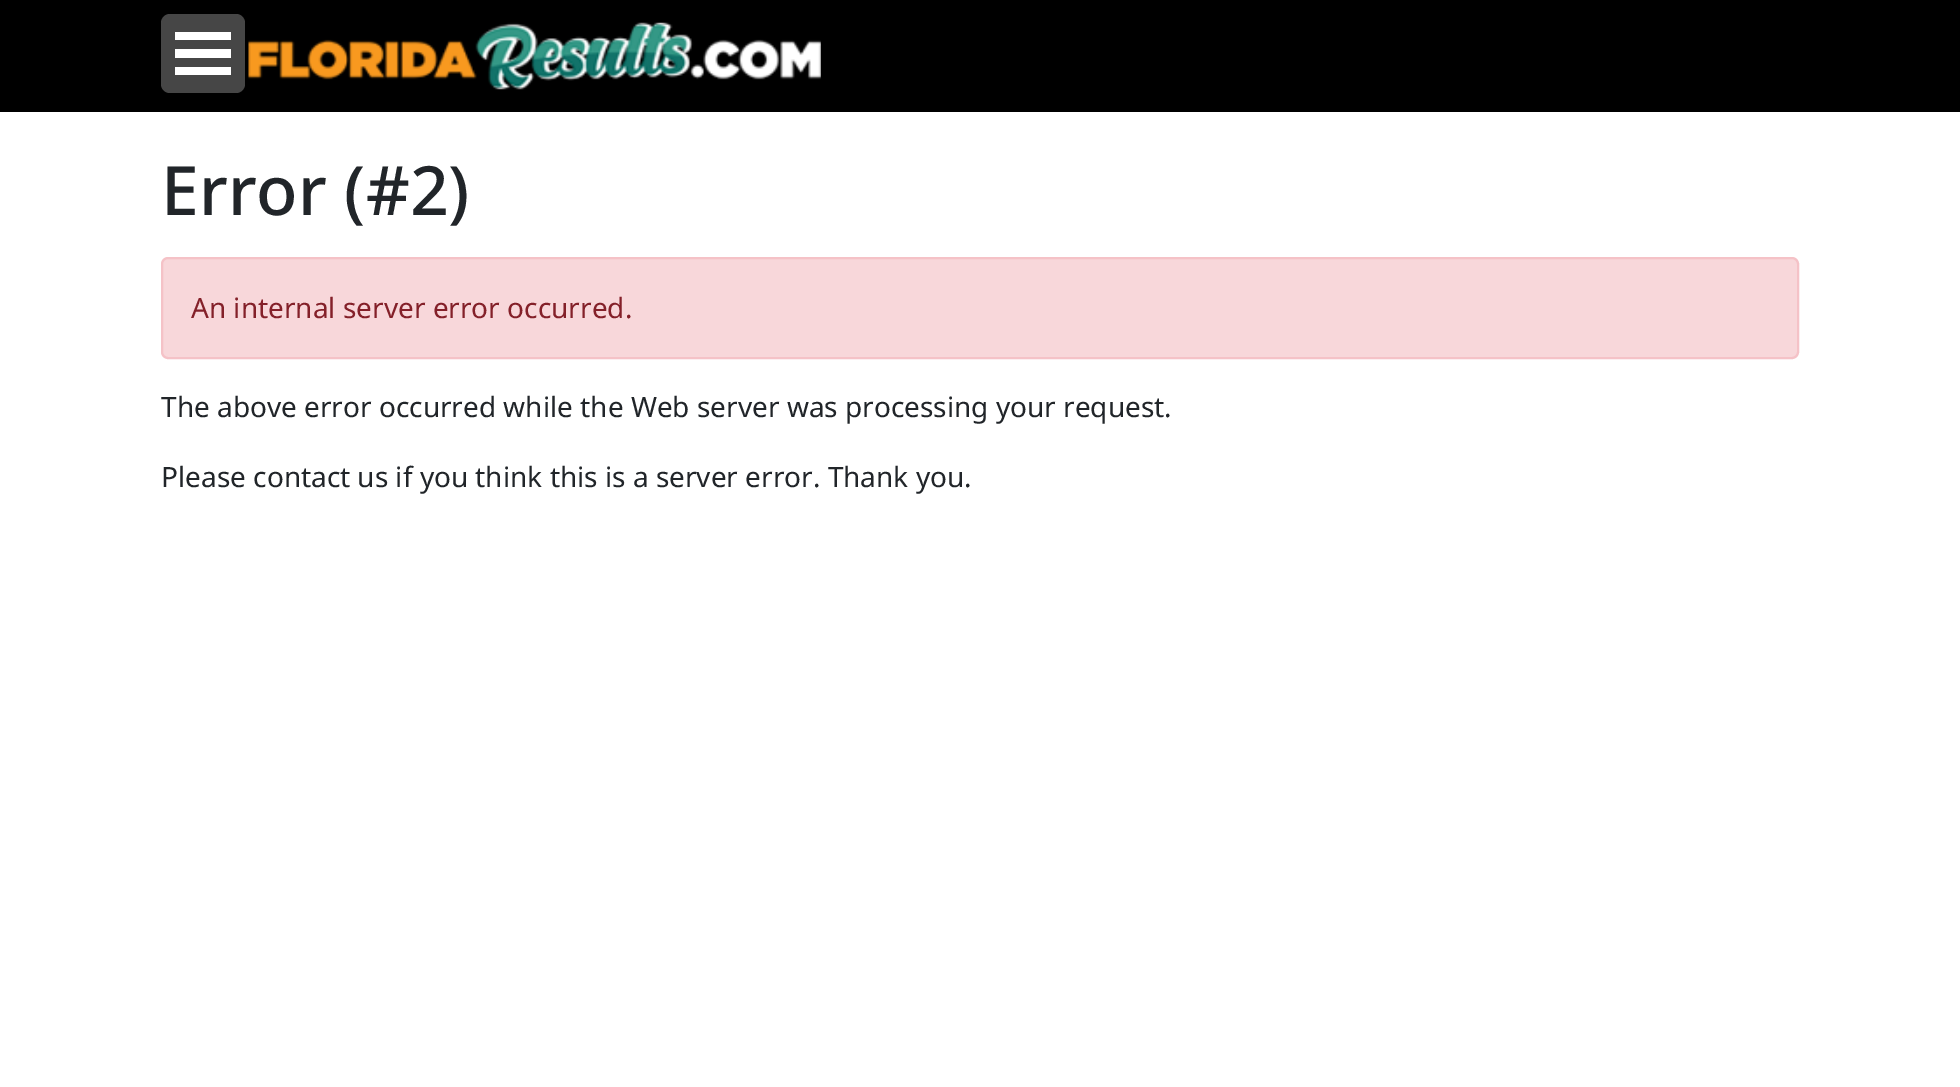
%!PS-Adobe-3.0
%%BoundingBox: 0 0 1960 1087
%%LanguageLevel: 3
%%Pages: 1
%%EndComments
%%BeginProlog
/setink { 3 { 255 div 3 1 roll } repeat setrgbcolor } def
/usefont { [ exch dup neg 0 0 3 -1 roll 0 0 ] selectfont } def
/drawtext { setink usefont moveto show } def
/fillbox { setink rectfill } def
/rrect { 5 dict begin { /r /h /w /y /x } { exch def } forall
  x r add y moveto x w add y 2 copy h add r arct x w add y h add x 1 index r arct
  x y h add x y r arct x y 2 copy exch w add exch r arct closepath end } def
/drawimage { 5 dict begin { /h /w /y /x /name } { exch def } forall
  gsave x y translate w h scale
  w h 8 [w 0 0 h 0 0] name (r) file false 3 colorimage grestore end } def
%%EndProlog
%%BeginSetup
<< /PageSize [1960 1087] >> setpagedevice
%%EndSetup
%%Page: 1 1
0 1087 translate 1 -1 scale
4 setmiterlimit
0 0 1960 1087 255 255 255 fillbox
0 0 1960 112 0 0 0 fillbox
70 70 70 setink
161 14 84 79 9 rrect fill
175 67 56 8 255 255 255 fillbox
175 49 56 9 255 255 255 fillbox
175 32 56 8 255 255 255 fillbox
(assets/img1.rgb) 248 22 573 68 drawimage
(Error \(#2\)) 161 215 /NotoSans-Medium 68 33 37 41 drawtext
248 215 218 setink
162 258 1636 100 6 rrect gsave fill grestore
245 194 199 setink
2 setlinewidth
stroke
(An internal server error occurred.) 191 318 /NotoSans-Regular 28 132 32 41 drawtext
(The above error occurred while the Web server was processing your request.) 161 417 /NotoSans-Regular 28 33 37 41 drawtext
(Please contact us if you think this is a server error. Thank you.) 161 487 /NotoSans-Regular 28 33 37 41 drawtext
showpage
%%EOF
